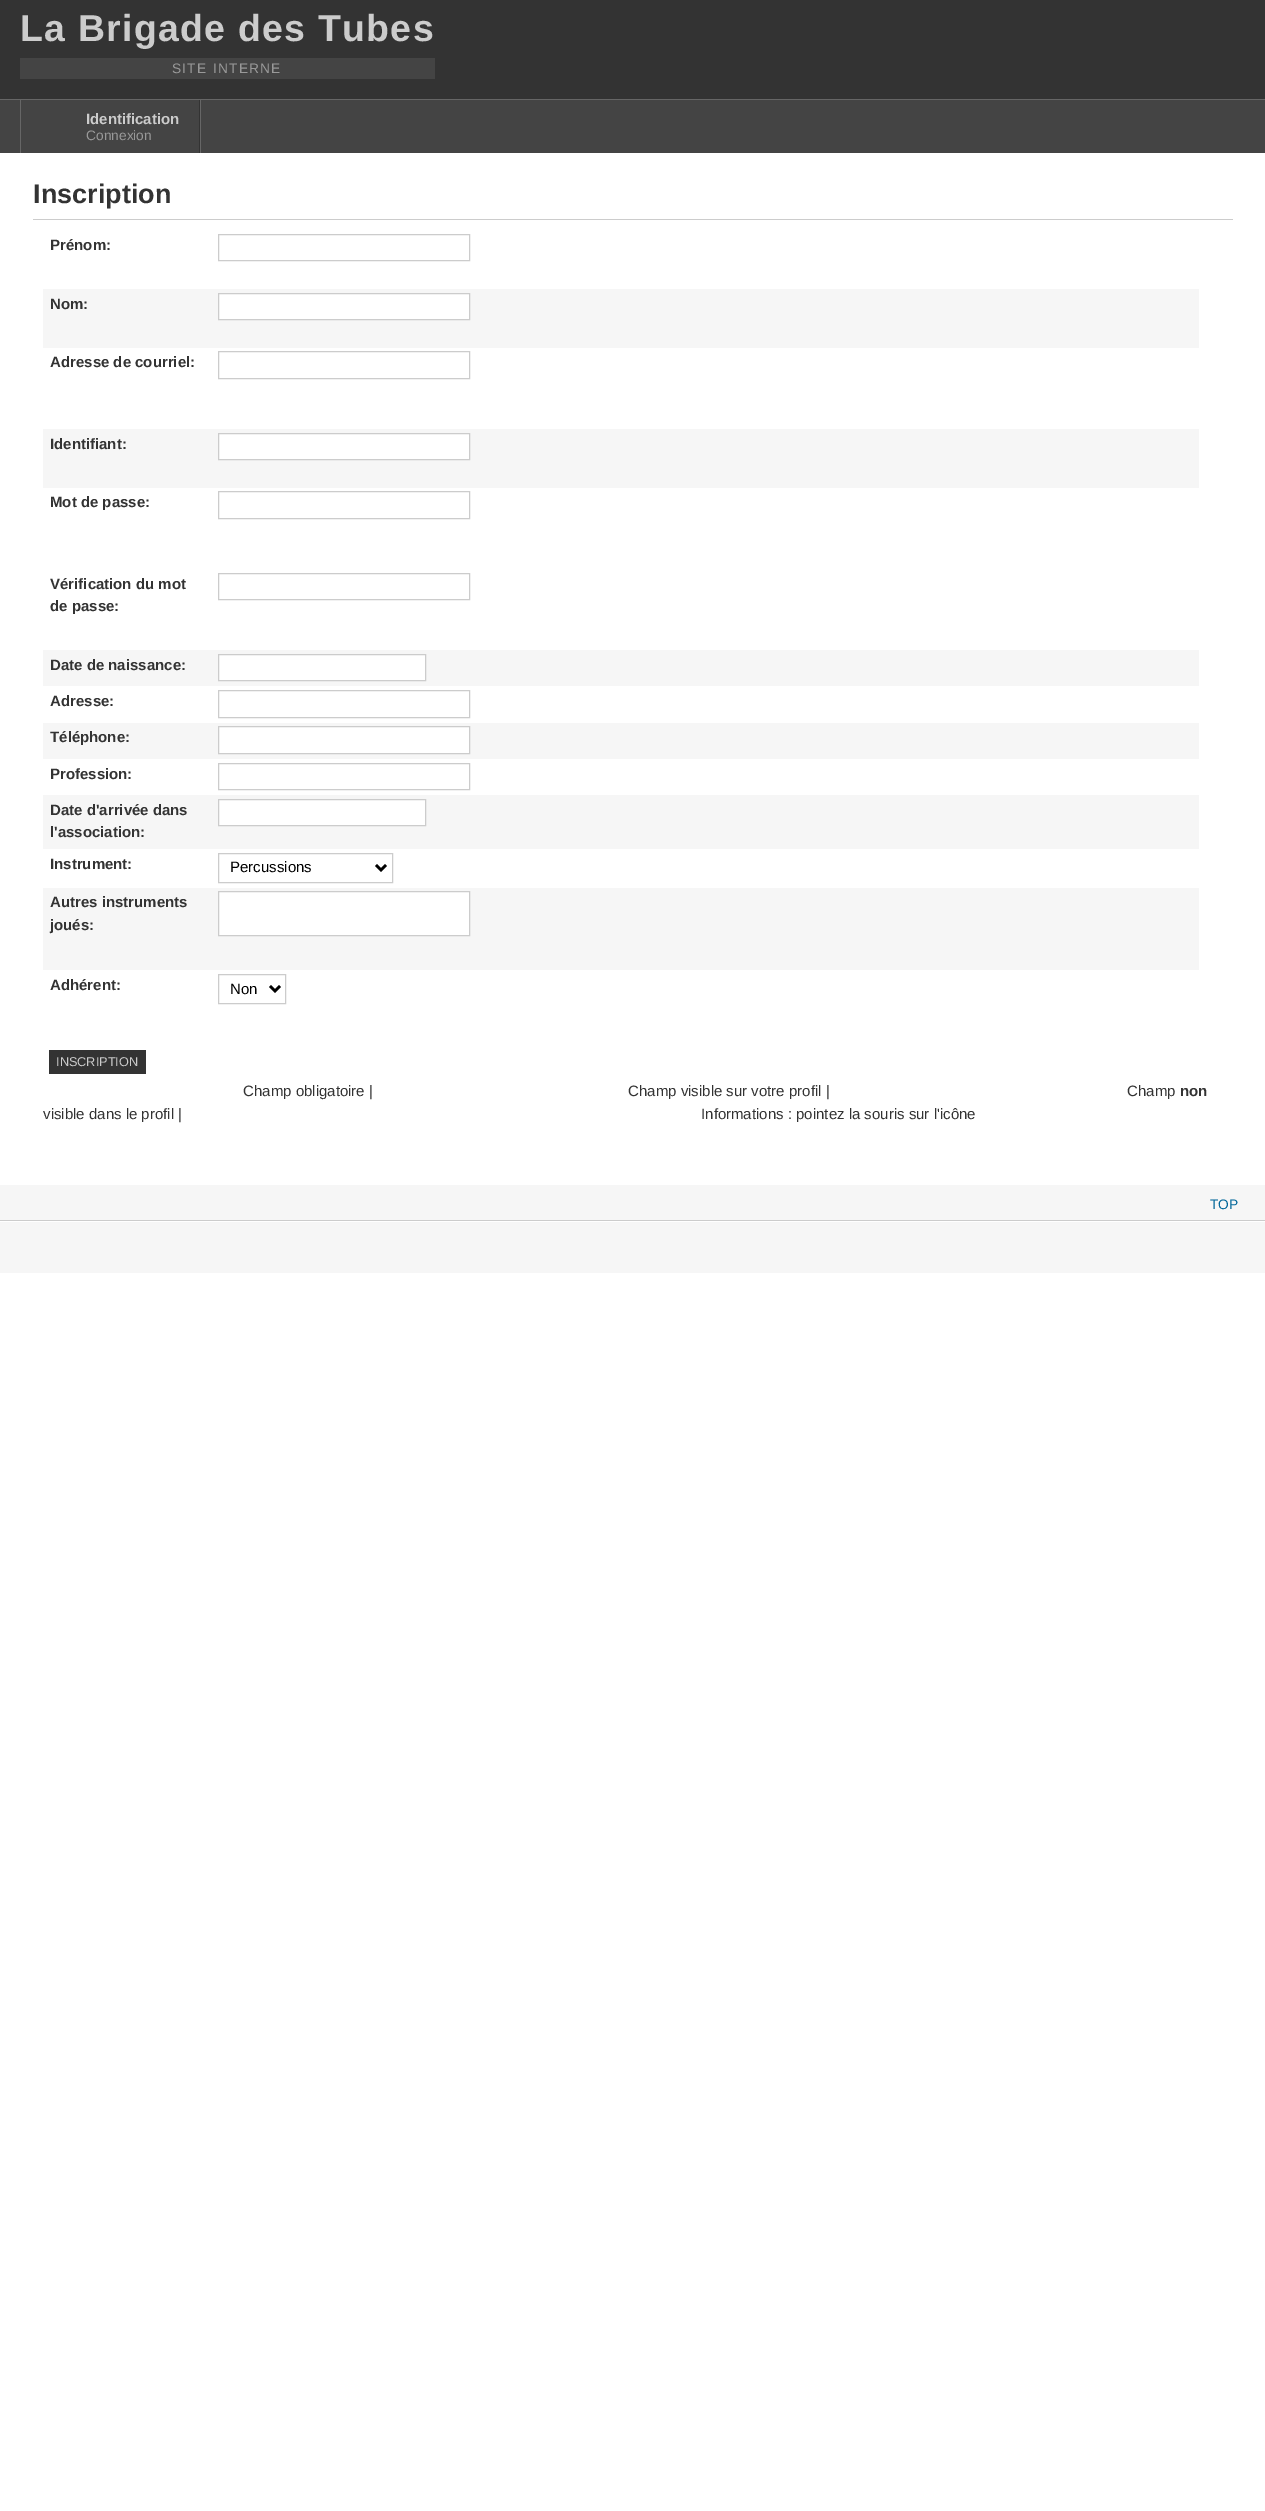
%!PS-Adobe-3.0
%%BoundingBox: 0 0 1265 2511
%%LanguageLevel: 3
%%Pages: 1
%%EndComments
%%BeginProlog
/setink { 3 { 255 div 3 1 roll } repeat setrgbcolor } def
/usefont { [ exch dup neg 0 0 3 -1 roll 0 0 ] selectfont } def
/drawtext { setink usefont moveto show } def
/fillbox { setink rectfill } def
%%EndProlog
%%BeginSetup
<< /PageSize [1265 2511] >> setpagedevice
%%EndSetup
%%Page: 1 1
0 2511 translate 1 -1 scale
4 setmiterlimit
0 0 1265 2511 255 255 255 fillbox
0 0 1265 99 51 51 51 fillbox
/LiberationSans-Bold 37.5 usefont
204 204 204 setink
20 41 moveto 1.25 0 (La Brigade des Tubes) ashow
20 58 415 21 68 68 68 fillbox
/LiberationSans-Regular 13.75 usefont
153 153 153 setink
172 73 moveto 1.25 0 (SITE INTERNE) ashow
0 100 1265 53 68 68 68 fillbox
0 99 1265 1 102 102 102 fillbox
200 100 1 53 102 102 102 fillbox
199 100 1 53 51 51 51 fillbox
20 100 1 53 102 102 102 fillbox
(Identification) 86 124 /LiberationSans-Bold 15 204 204 204 drawtext
(Connexion) 86 140 /LiberationSans-Regular 13.75 153 153 153 drawtext
33 219 1200 1 204 204 204 fillbox
(Inscription) 33 203 /LiberationSans-Bold 27 51 51 51 drawtext
(Prénom:) 50 250 /LiberationSans-Bold 15 51 51 51 drawtext
204 204 204 setink
218.5 234.5 251 26 rectstroke
43 289 1156 59 246 246 246 fillbox
(Nom:) 50 309 /LiberationSans-Bold 15 51 51 51 drawtext
255 255 255 setink
218.5 293.5 moveto 469.5 293.5 lineto 469.5 319.5 lineto 218.5 319.5 lineto closepath gsave fill grestore
204 204 204 setink
stroke
(Adresse de courriel:) 50 367 /LiberationSans-Bold 15 51 51 51 drawtext
204 204 204 setink
218.5 351.5 251 27 rectstroke
43 429 1156 59 246 246 246 fillbox
(Identifiant:) 50 449 /LiberationSans-Bold 15 51 51 51 drawtext
255 255 255 setink
218.5 433.5 moveto 469.5 433.5 lineto 469.5 459.5 lineto 218.5 459.5 lineto closepath gsave fill grestore
204 204 204 setink
stroke
(Mot de passe:) 50 507 /LiberationSans-Bold 15 51 51 51 drawtext
204 204 204 setink
218.5 491.5 251 27 rectstroke
(Vérification du mot) 50 589 /LiberationSans-Bold 15 51 51 51 drawtext
(de passe:) 50 611 /LiberationSans-Bold 15 51 51 51 drawtext
204 204 204 setink
218.5 573.5 251 26 rectstroke
43 650 1156 36 246 246 246 fillbox
(Date de naissance:) 50 670 /LiberationSans-Bold 15 51 51 51 drawtext
255 255 255 setink
218.5 654.5 moveto 425.5 654.5 lineto 425.5 680.5 lineto 218.5 680.5 lineto closepath gsave fill grestore
204 204 204 setink
stroke
(Adresse:) 50 706 /LiberationSans-Bold 15 51 51 51 drawtext
204 204 204 setink
218.5 690.5 251 27 rectstroke
43 723 1156 36 246 246 246 fillbox
(Téléphone:) 50 742 /LiberationSans-Bold 15 51 51 51 drawtext
255 255 255 setink
218.5 726.5 moveto 469.5 726.5 lineto 469.5 753.5 lineto 218.5 753.5 lineto closepath gsave fill grestore
204 204 204 setink
stroke
(Profession:) 50 779 /LiberationSans-Bold 15 51 51 51 drawtext
204 204 204 setink
218.5 763.5 251 26 rectstroke
43 795 1156 54 246 246 246 fillbox
(Date d'arrivée dans) 50 815 /LiberationSans-Bold 15 51 51 51 drawtext
(l'association:) 50 837 /LiberationSans-Bold 15 51 51 51 drawtext
255 255 255 setink
218.5 799.5 moveto 425.5 799.5 lineto 425.5 825.5 lineto 218.5 825.5 lineto closepath gsave fill grestore
204 204 204 setink
stroke
(Instrument:) 50 869 /LiberationSans-Bold 15 51 51 51 drawtext
204 204 204 setink
218.5 853.5 174 29 rectstroke
0 0 0 setink
2.5 setlinewidth
376 865 moveto 381 870 lineto 386 865 lineto stroke
(Percussions) 230 872 /LiberationSans-Regular 15 0 0 0 drawtext
43 888 1156 82 246 246 246 fillbox
(Autres instruments) 50 907 /LiberationSans-Bold 15 51 51 51 drawtext
(joués:) 50 930 /LiberationSans-Bold 15 51 51 51 drawtext
255 255 255 setink
218.5 891.5 moveto 469.5 891.5 lineto 469.5 935.5 lineto 218.5 935.5 lineto closepath gsave fill grestore
204 204 204 setink
1 setlinewidth
stroke
(Adhérent:) 50 990 /LiberationSans-Bold 15 51 51 51 drawtext
204 204 204 setink
218.5 974.5 67 29 rectstroke
0 0 0 setink
2.5 setlinewidth
270 986 moveto 275 991 lineto 280 986 lineto stroke
(Non) 230 994 /LiberationSans-Regular 15 0 0 0 drawtext
49 1050 97 24 51 51 51 fillbox
(INSCRIPTION) 56 1066 /LiberationSans-Regular 12.75 204 204 204 drawtext
(Champ obligatoire |) 243 1096 /LiberationSans-Regular 15 51 51 51 drawtext
(Champ visible sur votre profil |) 628 1096 /LiberationSans-Regular 15 51 51 51 drawtext
(Champ) 1127 1096 /LiberationSans-Regular 15 51 51 51 drawtext
(non) 1180 1096 /LiberationSans-Bold 15 51 51 51 drawtext
(visible dans le profil |) 43 1119 /LiberationSans-Regular 15 51 51 51 drawtext
(Informations : pointez la souris sur l'icône) 701 1119 /LiberationSans-Regular 15 51 51 51 drawtext
0 1185 1265 35 246 246 246 fillbox
0 1220 1265 1 204 204 204 fillbox
(TOP) 1210 1209 /LiberationSans-Regular 13.75 0 102 153 drawtext
0 1222 1265 51 246 246 246 fillbox
showpage
%%EOF
